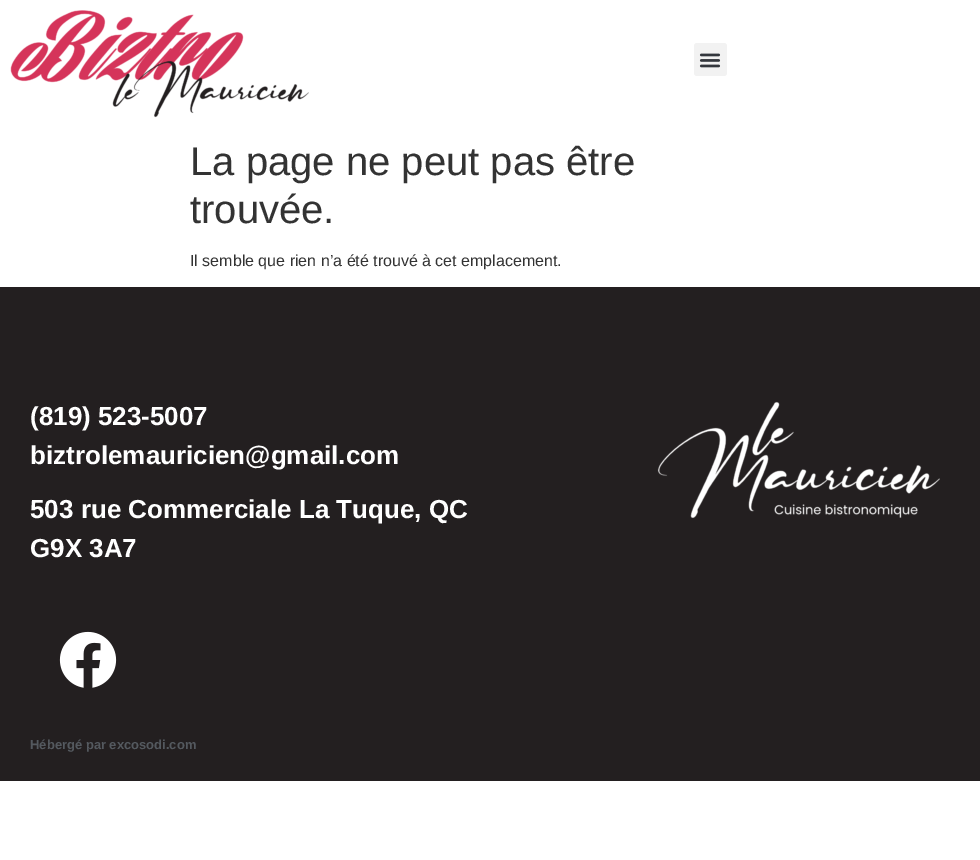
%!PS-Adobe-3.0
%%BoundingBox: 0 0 980 860
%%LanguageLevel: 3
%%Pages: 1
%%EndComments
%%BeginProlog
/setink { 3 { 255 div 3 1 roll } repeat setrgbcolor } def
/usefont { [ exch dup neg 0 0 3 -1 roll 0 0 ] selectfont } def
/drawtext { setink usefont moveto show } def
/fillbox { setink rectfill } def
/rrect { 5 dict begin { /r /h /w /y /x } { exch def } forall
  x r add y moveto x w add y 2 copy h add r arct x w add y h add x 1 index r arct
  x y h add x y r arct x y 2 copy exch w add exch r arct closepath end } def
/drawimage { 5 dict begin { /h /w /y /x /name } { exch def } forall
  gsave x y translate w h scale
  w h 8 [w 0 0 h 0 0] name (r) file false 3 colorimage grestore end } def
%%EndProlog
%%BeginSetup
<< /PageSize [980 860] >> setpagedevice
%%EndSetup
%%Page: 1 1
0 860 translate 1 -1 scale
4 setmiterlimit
0 0 980 860 255 255 255 fillbox
(assets/img1.rgb) 10 10 299 108 drawimage
242 242 242 setink
694 43 33 33 3 rrect fill
(assets/img2.rgb) 699 53 22 15 drawimage
(La page ne peut pas être) 190 175 /LiberationSans-Regular 40 51 51 51 drawtext
(trouvée.) 190 223 /LiberationSans-Regular 40 51 51 51 drawtext
(Il semble que rien n’a été trouvé à cet emplacement.) 190 266 /LiberationSans-Regular 16 51 51 51 drawtext
0 287 980 494 35 31 32 fillbox
(\(819\) 523-5007) 30 425 /LiberationSans-Bold 26 255 255 255 drawtext
(biztrolemauricien@gmail.com) 30 464 /LiberationSans-Bold 26 255 255 255 drawtext
(503 rue Commerciale La Tuque, QC) 30 518 /LiberationSans-Bold 26 255 255 255 drawtext
(G9X 3A7) 30 557 /LiberationSans-Bold 26 255 255 255 drawtext
(assets/img3.rgb) 59 631 58 57 drawimage
(Hébergé par excosodi.com) 30 749 /LiberationSans-Bold 13 84 89 95 drawtext
(assets/img4.rgb) 657 401 283 118 drawimage
showpage
%%EOF
